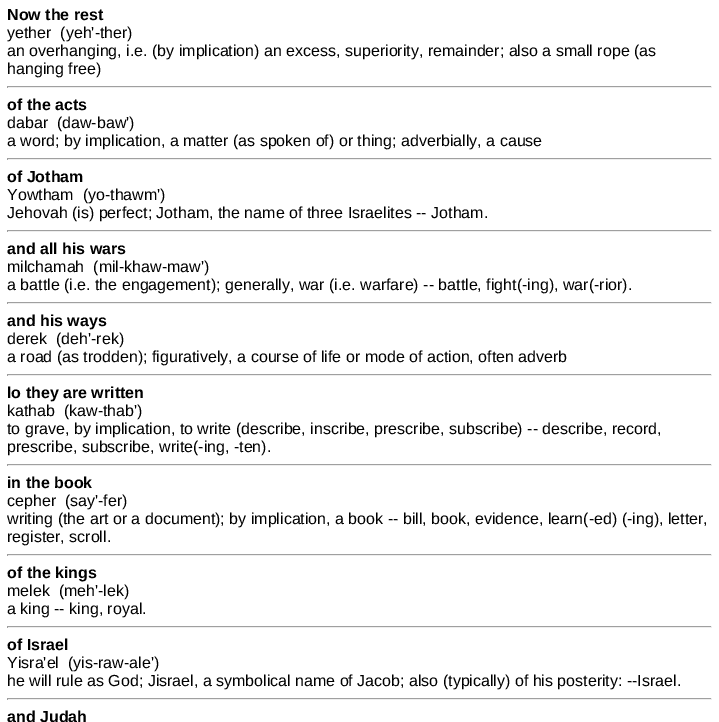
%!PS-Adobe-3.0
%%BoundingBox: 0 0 719 722
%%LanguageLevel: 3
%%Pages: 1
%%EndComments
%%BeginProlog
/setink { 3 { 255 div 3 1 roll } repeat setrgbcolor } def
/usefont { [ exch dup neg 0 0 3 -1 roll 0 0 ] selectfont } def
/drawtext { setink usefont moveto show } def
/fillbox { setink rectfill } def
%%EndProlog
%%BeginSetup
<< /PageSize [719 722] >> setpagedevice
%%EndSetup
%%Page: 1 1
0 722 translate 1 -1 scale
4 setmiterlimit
0 0 719 722 255 255 255 fillbox
(Now the rest) 7 20 /LiberationSans-Bold 16 0 0 0 drawtext
(yether  \(yeh'-ther\)) 7 38 /LiberationSans-Regular 16 0 0 0 drawtext
(an overhanging, i.e. \(by implication\) an excess, superiority, remainder; also a small rope \(as) 7 56 /LiberationSans-Regular 16 0 0 0 drawtext
(hanging free\)) 7 74 /LiberationSans-Regular 16 0 0 0 drawtext
7 86 705 1 159 159 159 fillbox
711 86 1 2 238 238 238 fillbox
7 87 705 1 238 238 238 fillbox
7 86 1 2 159 159 159 fillbox
(of the acts) 7 110 /LiberationSans-Bold 16 0 0 0 drawtext
(dabar  \(daw-baw'\)) 7 128 /LiberationSans-Regular 16 0 0 0 drawtext
(a word; by implication, a matter \(as spoken of\) or thing; adverbially, a cause) 7 146 /LiberationSans-Regular 16 0 0 0 drawtext
7 158 705 1 159 159 159 fillbox
711 158 1 2 238 238 238 fillbox
7 159 705 1 238 238 238 fillbox
7 158 1 2 159 159 159 fillbox
(of Jotham) 7 182 /LiberationSans-Bold 16 0 0 0 drawtext
(Yowtham  \(yo-thawm'\)) 7 200 /LiberationSans-Regular 16 0 0 0 drawtext
(Jehovah \(is\) perfect; Jotham, the name of three Israelites -- Jotham.) 7 218 /LiberationSans-Regular 16 0 0 0 drawtext
7 230 705 1 159 159 159 fillbox
711 230 1 2 238 238 238 fillbox
7 231 705 1 238 238 238 fillbox
7 230 1 2 159 159 159 fillbox
(and all his wars) 7 254 /LiberationSans-Bold 16 0 0 0 drawtext
(milchamah  \(mil-khaw-maw'\)) 7 272 /LiberationSans-Regular 16 0 0 0 drawtext
(a battle \(i.e. the engagement\); generally, war \(i.e. warfare\) -- battle, fight\(-ing\), war\(-rior\).) 7 290 /LiberationSans-Regular 16 0 0 0 drawtext
7 302 705 1 159 159 159 fillbox
711 302 1 2 238 238 238 fillbox
7 303 705 1 238 238 238 fillbox
7 302 1 2 159 159 159 fillbox
(and his ways) 7 326 /LiberationSans-Bold 16 0 0 0 drawtext
(derek  \(deh'-rek\)) 7 344 /LiberationSans-Regular 16 0 0 0 drawtext
(a road \(as trodden\); figuratively, a course of life or mode of action, often adverb) 7 362 /LiberationSans-Regular 16 0 0 0 drawtext
7 374 705 1 159 159 159 fillbox
711 374 1 2 238 238 238 fillbox
7 375 705 1 238 238 238 fillbox
7 374 1 2 159 159 159 fillbox
(lo they are written) 7 398 /LiberationSans-Bold 16 0 0 0 drawtext
(kathab  \(kaw-thab'\)) 7 416 /LiberationSans-Regular 16 0 0 0 drawtext
(to grave, by implication, to write \(describe, inscribe, prescribe, subscribe\) -- describe, record,) 7 434 /LiberationSans-Regular 16 0 0 0 drawtext
(prescribe, subscribe, write\(-ing, -ten\).) 7 452 /LiberationSans-Regular 16 0 0 0 drawtext
7 464 705 1 159 159 159 fillbox
711 464 1 2 238 238 238 fillbox
7 465 705 1 238 238 238 fillbox
7 464 1 2 159 159 159 fillbox
(in the book) 7 488 /LiberationSans-Bold 16 0 0 0 drawtext
(cepher  \(say'-fer\)) 7 506 /LiberationSans-Regular 16 0 0 0 drawtext
(writing \(the art or a document\); by implication, a book -- bill, book, evidence, learn\(-ed\) \(-ing\), letter,) 7 524 /LiberationSans-Regular 16 0 0 0 drawtext
(register, scroll.) 7 542 /LiberationSans-Regular 16 0 0 0 drawtext
7 554 705 1 159 159 159 fillbox
711 554 1 2 238 238 238 fillbox
7 555 705 1 238 238 238 fillbox
7 554 1 2 159 159 159 fillbox
(of the kings) 7 578 /LiberationSans-Bold 16 0 0 0 drawtext
(melek  \(meh'-lek\)) 7 596 /LiberationSans-Regular 16 0 0 0 drawtext
(a king -- king, royal.) 7 614 /LiberationSans-Regular 16 0 0 0 drawtext
7 626 705 1 159 159 159 fillbox
711 626 1 2 238 238 238 fillbox
7 627 705 1 238 238 238 fillbox
7 626 1 2 159 159 159 fillbox
(of Israel) 7 650 /LiberationSans-Bold 16 0 0 0 drawtext
(Yisra'el  \(yis-raw-ale'\)) 7 668 /LiberationSans-Regular 16 0 0 0 drawtext
(he will rule as God; Jisrael, a symbolical name of Jacob; also \(typically\) of his posterity: --Israel.) 7 686 /LiberationSans-Regular 16 0 0 0 drawtext
7 698 705 1 159 159 159 fillbox
711 698 1 2 238 238 238 fillbox
7 699 705 1 238 238 238 fillbox
7 698 1 2 159 159 159 fillbox
(and Judah) 7 722 /LiberationSans-Bold 16 0 0 0 drawtext
showpage
%%EOF
